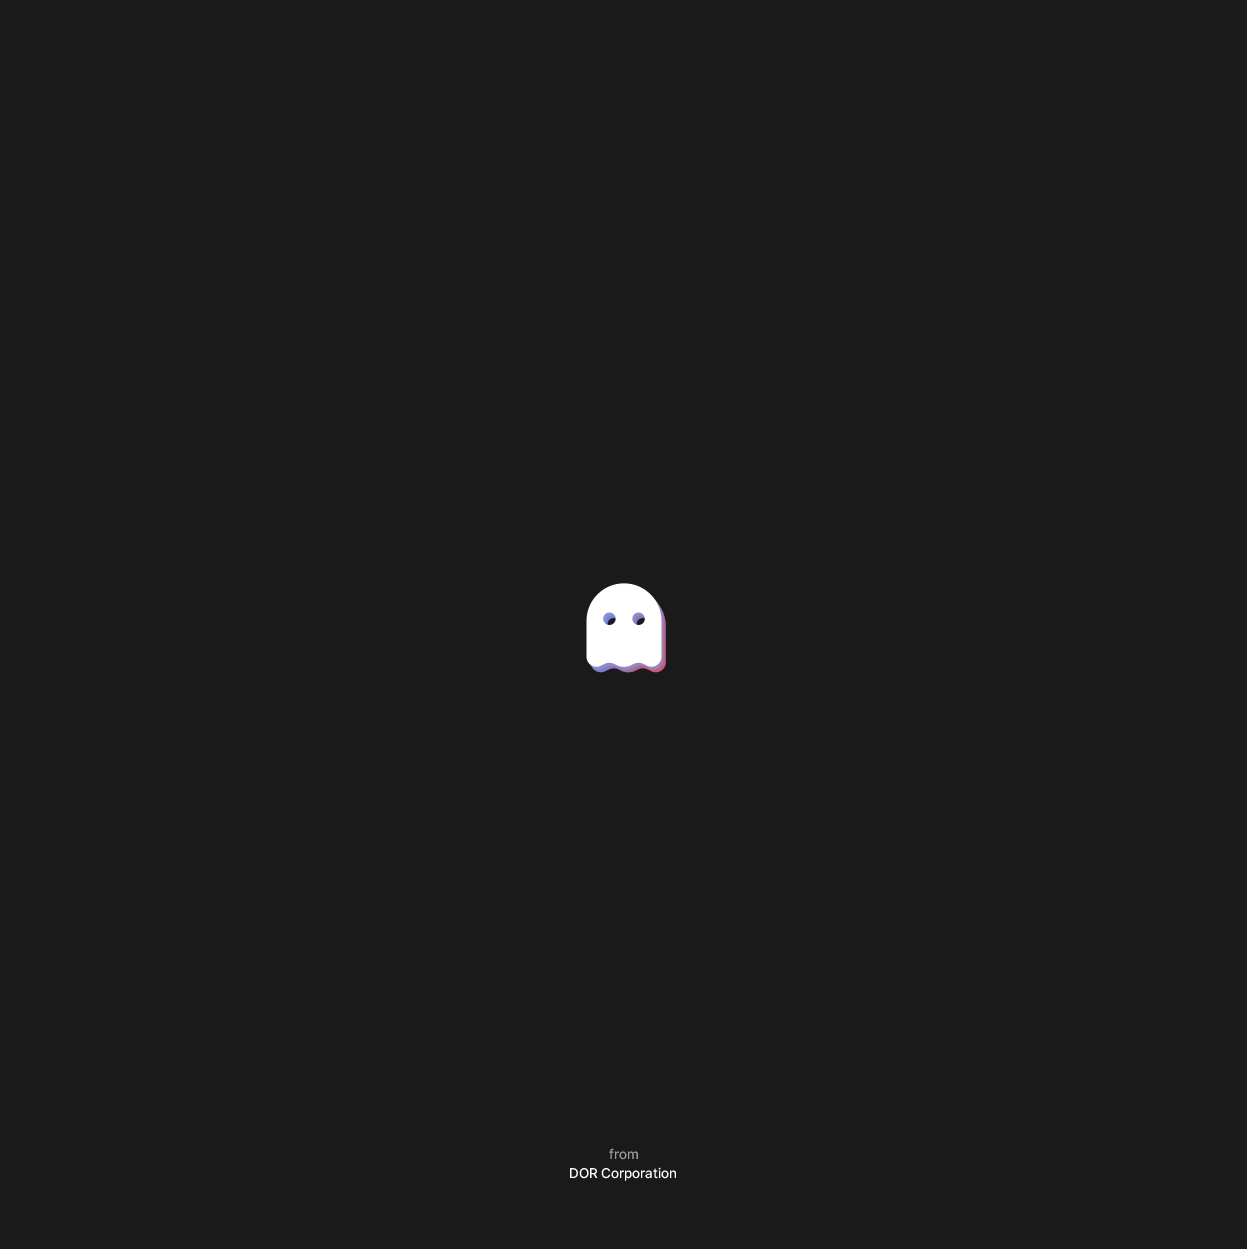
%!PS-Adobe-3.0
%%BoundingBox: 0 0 1247 1249
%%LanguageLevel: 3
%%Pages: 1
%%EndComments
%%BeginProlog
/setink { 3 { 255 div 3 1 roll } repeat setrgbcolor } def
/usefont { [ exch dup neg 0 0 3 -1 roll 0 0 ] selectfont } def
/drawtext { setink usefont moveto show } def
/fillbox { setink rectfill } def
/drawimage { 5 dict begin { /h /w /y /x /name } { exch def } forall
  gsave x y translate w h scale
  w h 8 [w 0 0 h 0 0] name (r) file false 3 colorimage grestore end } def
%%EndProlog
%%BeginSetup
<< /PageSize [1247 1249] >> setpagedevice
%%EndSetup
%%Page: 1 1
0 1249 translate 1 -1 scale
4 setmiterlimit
0 0 1247 1249 26 26 26 fillbox
(assets/img1.rgb) 586 583 80 90 drawimage
(from) 609 1159 /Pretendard-Medium 14 158 158 158 drawtext
(DOR Corporation) 569 1178 /Pretendard-Medium 14 255 255 255 drawtext
showpage
%%EOF
